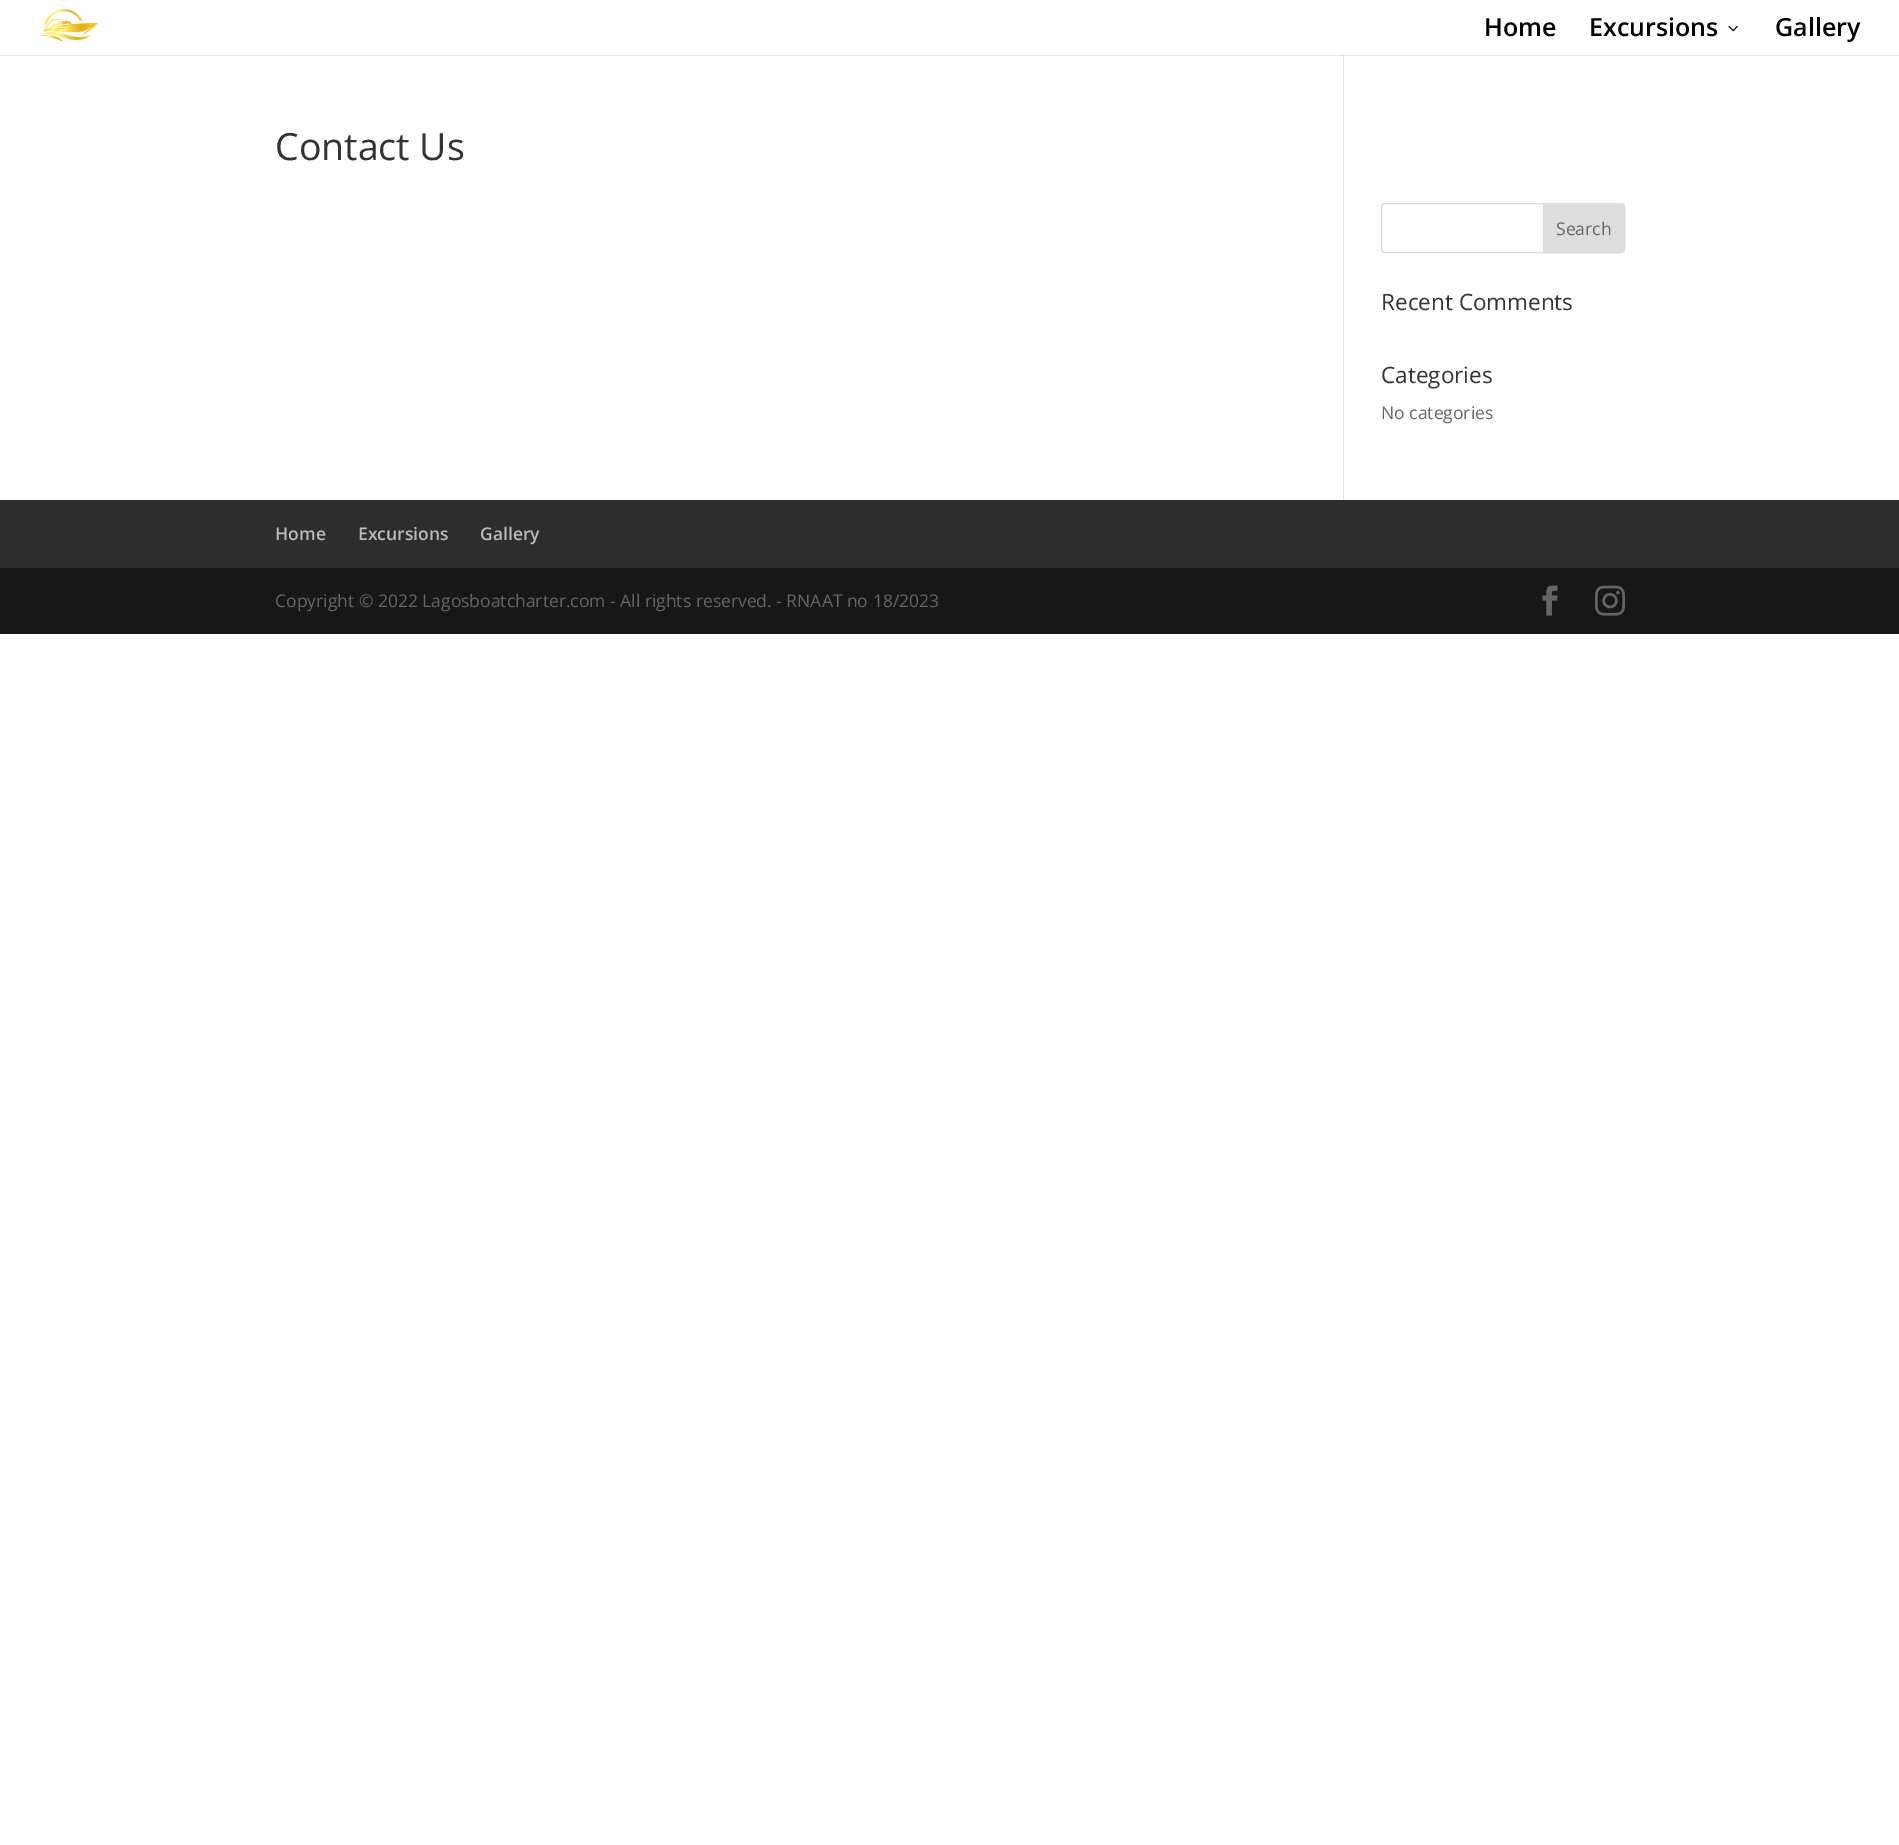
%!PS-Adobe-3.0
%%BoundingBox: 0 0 1899 1845
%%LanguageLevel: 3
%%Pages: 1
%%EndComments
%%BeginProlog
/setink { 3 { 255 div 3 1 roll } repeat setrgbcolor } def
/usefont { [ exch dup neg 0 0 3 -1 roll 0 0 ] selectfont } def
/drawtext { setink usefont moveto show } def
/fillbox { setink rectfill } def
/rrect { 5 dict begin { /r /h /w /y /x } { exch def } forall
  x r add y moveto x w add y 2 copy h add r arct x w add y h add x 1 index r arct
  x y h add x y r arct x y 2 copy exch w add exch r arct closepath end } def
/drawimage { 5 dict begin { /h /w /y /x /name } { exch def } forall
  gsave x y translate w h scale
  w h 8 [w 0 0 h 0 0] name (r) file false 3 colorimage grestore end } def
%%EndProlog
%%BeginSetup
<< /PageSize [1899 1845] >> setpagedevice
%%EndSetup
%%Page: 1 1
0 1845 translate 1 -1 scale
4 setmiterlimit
0 0 1899 1845 255 255 255 fillbox
0 55 1899 1 230 230 230 fillbox
(assets/img1.rgb) 42 9 57 33 drawimage
(Home) 1484 36 /OpenSans-SemiBold 25 0 0 0 drawtext
(Excursions) 1589 36 /OpenSans-SemiBold 25 0 0 0 drawtext
(assets/img2.rgb) 1728 26 10 6 drawimage
(Gallery) 1775 36 /OpenSans-SemiBold 25 0 0 0 drawtext
1343 55 1 445 226 226 226 fillbox
1343 55 1 1 203 203 203 fillbox
(Contact Us) 275 160 /OpenSans-Regular 37.5 51 51 51 drawtext
221 221 221 setink
1381.5 203.5 243 49 3.5 rrect stroke
1543.5 203.5 moveto 1621 203.5 lineto 1623 203.5 1624.5 205 1624.5 207 curveto 1624.5 249 lineto 1624.5 251 1623 252.5 1621 252.5 curveto 1543.5 252.5 lineto closepath gsave fill grestore
stroke
(Search) 1556 235 /OpenSans-Regular 17.5 102 102 102 drawtext
(Recent Comments) 1381 310 /OpenSans-Regular 22.5 51 51 51 drawtext
(Categories) 1381 383 /OpenSans-Regular 22.5 51 51 51 drawtext
(No categories) 1381 419 /OpenSans-Regular 17.5 102 102 102 drawtext
0 500 1899 68 45 45 45 fillbox
(Home) 275 540 /OpenSans-SemiBold 17.5 187 187 187 drawtext
(Excursions) 358 540 /OpenSans-SemiBold 17.5 187 187 187 drawtext
(Gallery) 480 540 /OpenSans-SemiBold 17.5 187 187 187 drawtext
0 568 1899 66 23 23 23 fillbox
(Copyright © 2022 Lagosboatcharter.com - All rights reserved. - RNAAT no 18/2023) 275 607 /OpenSans-Regular 17.5 102 102 102 drawtext
(assets/img3.rgb) 1542 585 16 31 drawimage
(assets/img4.rgb) 1595 585 30 31 drawimage
showpage
%%EOF
